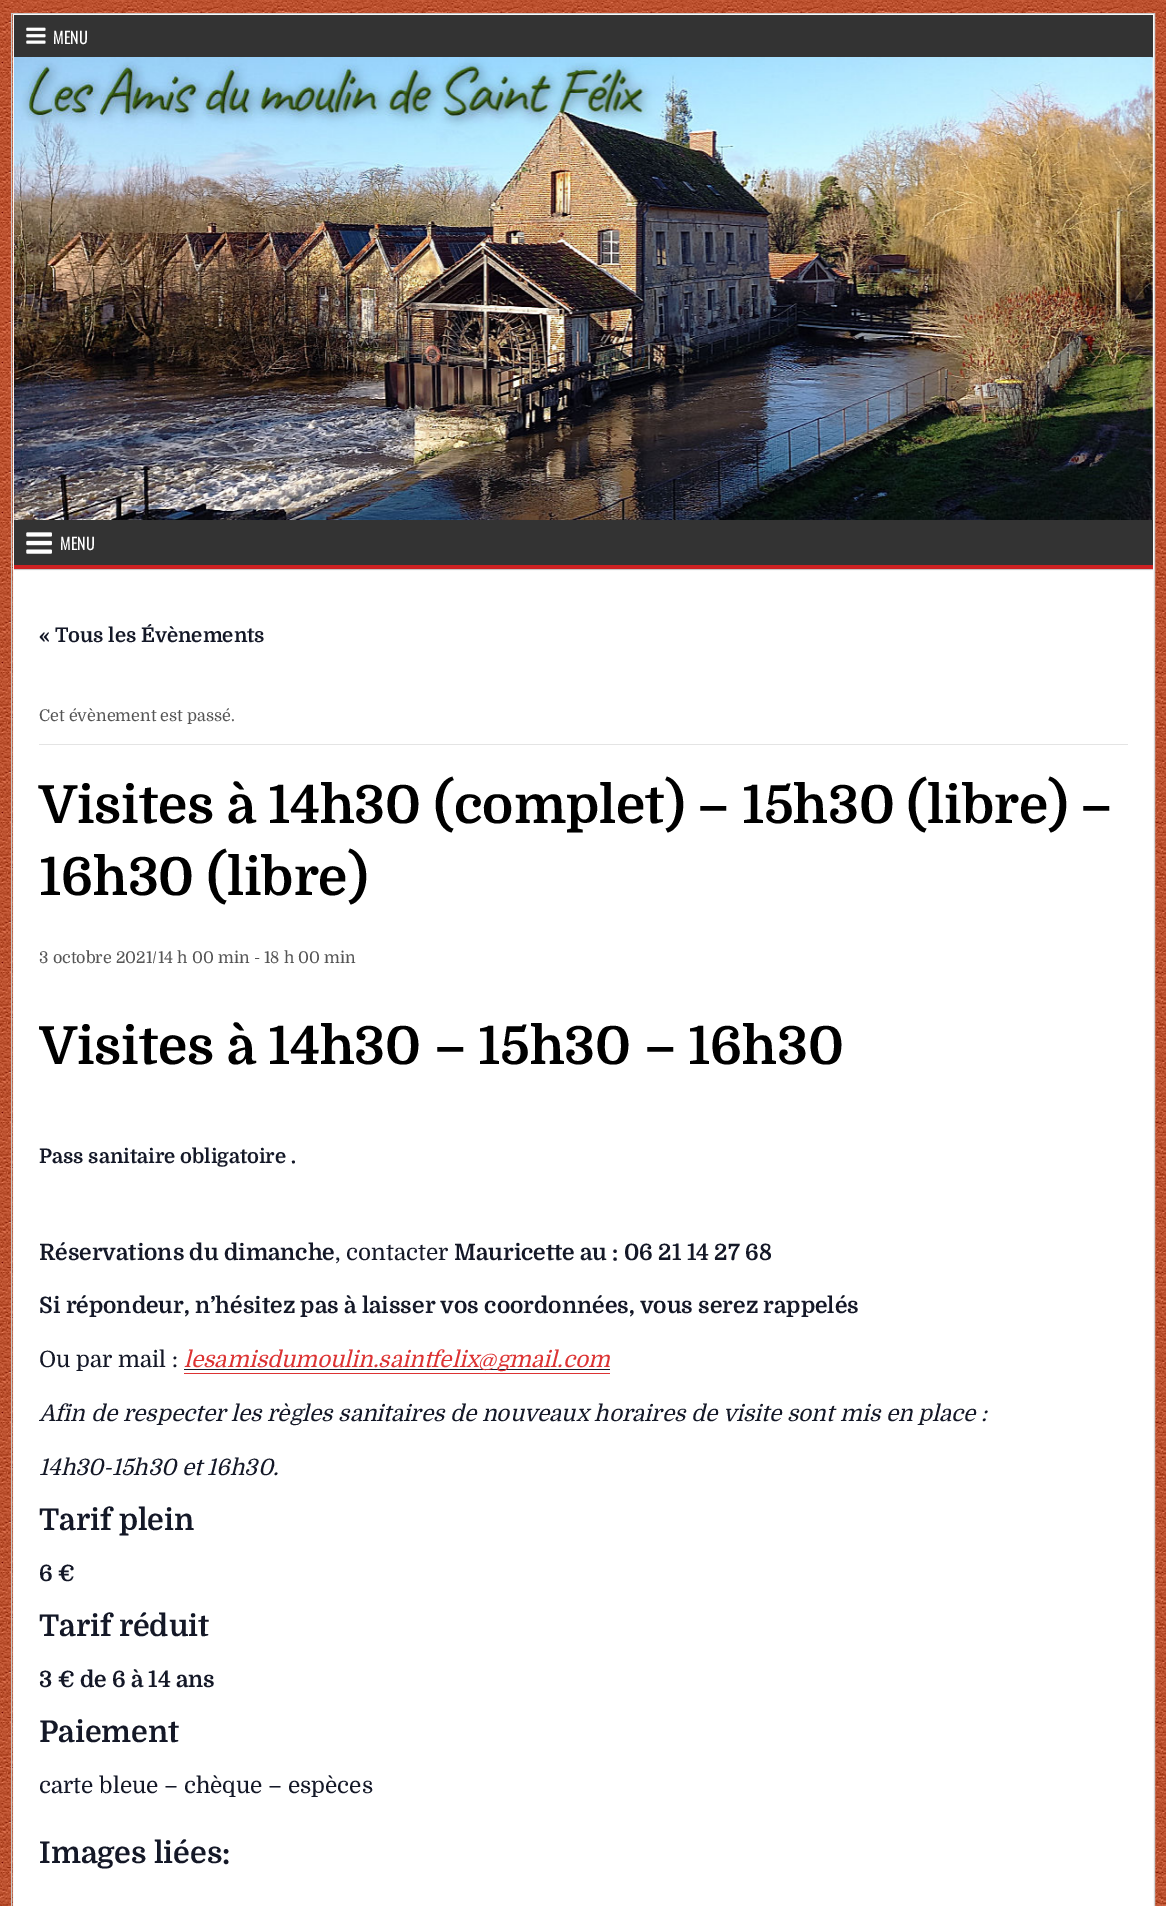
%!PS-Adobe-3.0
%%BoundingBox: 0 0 1166 1906
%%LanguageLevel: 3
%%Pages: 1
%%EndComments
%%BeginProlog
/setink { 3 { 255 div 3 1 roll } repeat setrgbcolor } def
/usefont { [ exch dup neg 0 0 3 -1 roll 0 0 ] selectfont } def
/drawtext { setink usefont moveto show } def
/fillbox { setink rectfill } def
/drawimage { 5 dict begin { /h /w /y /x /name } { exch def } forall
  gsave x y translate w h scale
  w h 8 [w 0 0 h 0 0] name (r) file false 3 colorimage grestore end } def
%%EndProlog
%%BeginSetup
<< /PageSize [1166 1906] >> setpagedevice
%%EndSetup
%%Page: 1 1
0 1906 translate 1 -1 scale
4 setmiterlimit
0 0 1166 1906 255 255 255 fillbox
(assets/img1.rgb) 0 0 1166 1906 drawimage
200 200 200 setink
11.5 13.5 1143 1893 rectstroke
249 249 249 setink
13.5 14.5 1140 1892 rectstroke
14 15 1139 43 51 51 51 fillbox
(assets/img2.rgb) 26 27 20 17 drawimage
(MENU) 53 44 /Oswald-Regular 16.25 255 255 255 drawtext
(assets/img3.rgb) 14 57 1139 463 drawimage
14 520 1139 45 51 51 51 fillbox
14 565 1139 4 205 33 34 fillbox
(assets/img4.rgb) 26 532 26 22 drawimage
(MENU) 60 550 /Oswald-Regular 16.25 255 255 255 drawtext
14 570 1139 1 249 249 249 fillbox
14 569 1139 1 200 200 200 fillbox
14 571 1139 1335 255 255 255 fillbox
(« Tous les Évènements) 39 642 /Domine-Bold 20 20 24 39 drawtext
39 744 1089 1 228 228 228 fillbox
(Cet évènement est passé.) 39 721 /Domine-Regular 16.25 85 85 85 drawtext
(Visites à 14h30 \(complet\) – 15h30 \(libre\) –) 39 823 /Domine-Bold 52.5 0 0 0 drawtext
(16h30 \(libre\)) 39 895 /Domine-Bold 52.5 0 0 0 drawtext
(3 octobre 2021/14 h 00 min - 18 h 00 min) 39 963 /Domine-Regular 16.25 85 85 85 drawtext
gsave
39 1011 1089 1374 rectclip
(Visites à 14h30 – 15h30 – 16h30) 39 1064 /Domine-Bold 52.5 0 0 0 drawtext
grestore
(Pass sanitaire obligatoire .) 39 1163 /Domine-Bold 20 20 24 39 drawtext
(Réservations du dimanche) 39 1260 /Domine-Bold 22.5 20 24 39 drawtext
(, contacter) 335 1260 /Domine-Regular 22.5 20 24 39 drawtext
(Mauricette au : 06 21 14 27 68) 454 1260 /Domine-Bold 22.5 20 24 39 drawtext
(Si répondeur, n’hésitez pas à laisser vos coordonnées, vous serez rappelés) 39 1313 /Domine-Bold 22.5 20 24 39 drawtext
(Ou par mail :) 39 1367 /Domine-Regular 22.5 20 24 39 drawtext
184 1369 426 1 20 24 39 fillbox
(lesamisdumoulin.saintfelix@gmail.com) 184 1367 /Domine-Italic 22.5 221 51 51 drawtext
184 1373 426 1 221 51 51 fillbox
(Afin de respecter les règles sanitaires de nouveaux horaires de visite sont mis en place :) 39 1421 /Domine-Italic 22.5 20 24 39 drawtext
(14h30-15h30 et 16h30.) 39 1475 /Domine-Italic 22.5 20 24 39 drawtext
(Tarif plein) 39 1530 /Domine-Bold 30 20 24 39 drawtext
(6 €) 39 1581 /Domine-Bold 22.5 20 24 39 drawtext
(Tarif réduit) 39 1636 /Domine-Bold 30 20 24 39 drawtext
(3 € de 6 à 14 ans) 39 1687 /Domine-Bold 22.5 20 24 39 drawtext
(Paiement) 39 1742 /Domine-Bold 30 20 24 39 drawtext
(carte bleue – chèque – espèces) 39 1793 /Domine-Regular 22.5 20 24 39 drawtext
(Images liées:) 39 1863 /Domine-Bold 30 20 24 39 drawtext
showpage
%%EOF
